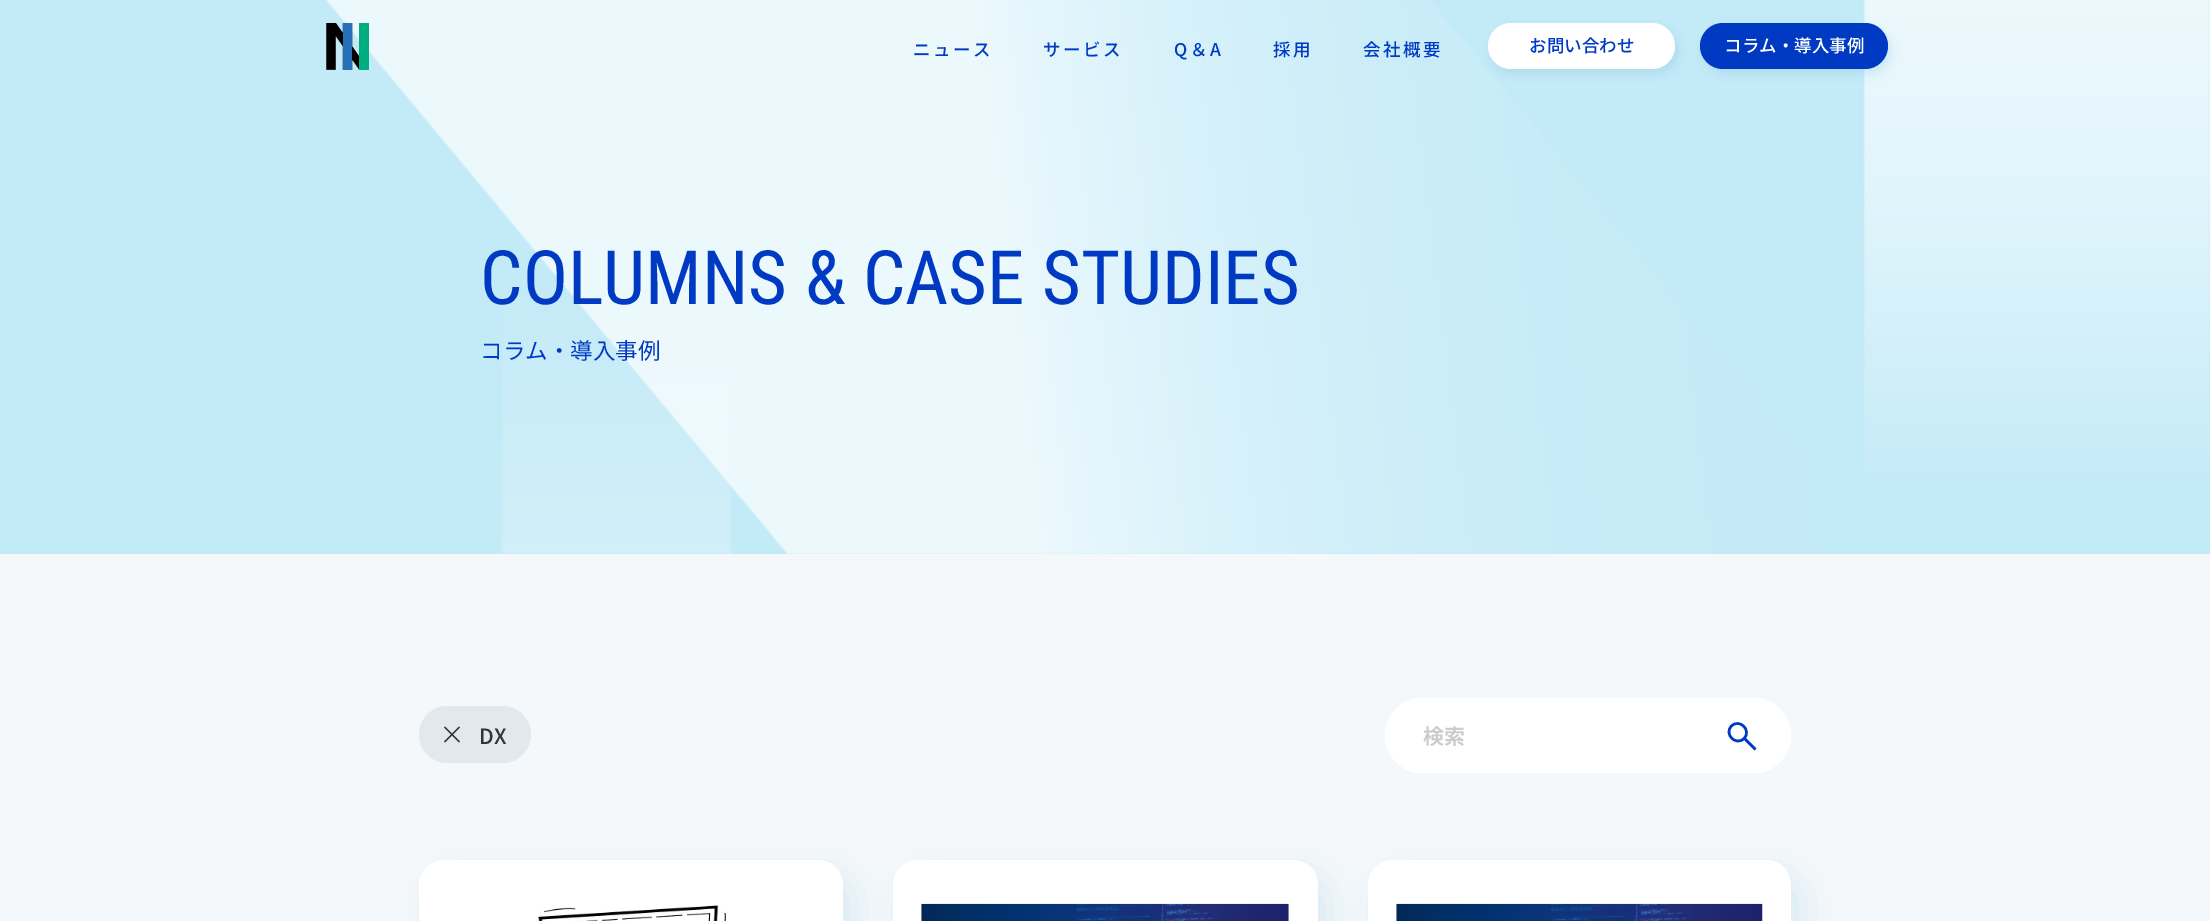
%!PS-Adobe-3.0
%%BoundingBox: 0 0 2210 921
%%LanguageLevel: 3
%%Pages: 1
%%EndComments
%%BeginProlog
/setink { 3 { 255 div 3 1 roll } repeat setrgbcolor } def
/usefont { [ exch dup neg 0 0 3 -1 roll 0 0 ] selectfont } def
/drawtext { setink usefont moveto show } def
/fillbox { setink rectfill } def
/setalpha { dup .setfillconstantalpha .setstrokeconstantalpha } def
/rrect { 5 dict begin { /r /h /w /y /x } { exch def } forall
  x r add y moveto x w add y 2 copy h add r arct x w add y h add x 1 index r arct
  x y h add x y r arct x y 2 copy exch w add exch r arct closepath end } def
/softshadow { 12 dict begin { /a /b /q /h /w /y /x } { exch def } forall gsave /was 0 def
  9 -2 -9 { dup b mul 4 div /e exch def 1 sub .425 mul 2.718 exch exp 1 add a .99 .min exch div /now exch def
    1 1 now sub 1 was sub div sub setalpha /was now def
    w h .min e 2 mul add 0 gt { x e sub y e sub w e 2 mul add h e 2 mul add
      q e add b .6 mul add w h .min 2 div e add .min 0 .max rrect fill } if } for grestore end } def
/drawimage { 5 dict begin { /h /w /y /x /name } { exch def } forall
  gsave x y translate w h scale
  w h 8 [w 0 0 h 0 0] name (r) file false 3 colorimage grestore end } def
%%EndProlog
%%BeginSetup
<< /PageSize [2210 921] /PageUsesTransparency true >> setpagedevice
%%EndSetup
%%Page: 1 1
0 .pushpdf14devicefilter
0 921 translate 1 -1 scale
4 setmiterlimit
0 0 2210 921 195 234 247 fillbox
(assets/img2.rgb) 326 0 1884 554 drawimage
(assets/img1.rgb) 326 23 43 47 drawimage
/NotoSansJP-Medium 17.5 usefont
0 58 194 setink
913 56 moveto 2.5 0 (ニュース) ashow
1043 56 moveto 2.5 0 (サービス) ashow
1174 56 moveto 2.5 0 (Q＆A) ashow
1273 56 moveto 2.5 0 (採用) ashow
1363 56 moveto 2.5 0 (会社概要) ashow
136 190 221 setink
1491 28 188 46 23 5.5 0.3 softshadow
255 255 255 setink
1488 23 187 46 23 rrect fill
(お問い合わせ) 1529 52 /NotoSansJP-Medium 17.5 0 58 194 drawtext
136 190 221 setink
1704 28 187 46 23 5.5 0.3 softshadow
0 58 194 setink
1700 23 188 46 23 rrect fill
(コラム・導入事例) 1724 52 /NotoSansJP-Medium 17.5 255 255 255 drawtext
(COLUMNS & CASE STUDIES) 480 304 /RobotoCondensed-Regular 75 0 58 194 drawtext
(コラム・導入事例) 480 359 /NotoSansJP-Regular 22.5 0 58 194 drawtext
0 554 2210 367 245 248 250 fillbox
225 233 239 setink
419 706 112 57 28.5 rrect fill
51 51 51 setink
459 726.5 moveto 460 727.5 lineto 445 742.5 lineto 444 741.5 lineto closepath fill
444 727.5 moveto 445 726.5 lineto 460 741.5 lineto 459 742.5 lineto closepath fill
(DX) 479 744 /NotoSansJP-Medium 21 52 52 52 drawtext
255 255 255 setink
1385 698 406 75 37.5 rrect fill
(検索) 1423 744 /NotoSansJP-Bold 21 201 204 206 drawtext
0 58 194 setink
2.5 setlinewidth
1731.5 726 moveto 1739.5 718 1752 730.5 1744 738.5 curveto 1736 746.5 1723.5 734 1731.5 726 curveto closepath 1745 739 moveto 1755.5 749.5 lineto stroke
136 190 221 setink
431 873 424 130 25 19 0.25 softshadow
255 255 255 setink
419 860 424 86 25 rrect fill
(assets/img3.rgb) 538 905 188 16 drawimage
136 190 221 setink
905 873 425 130 25 19 0.25 softshadow
255 255 255 setink
893 860 425 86 25 rrect fill
(assets/img4.rgb) 921 903 368 18 drawimage
136 190 221 setink
1380 873 424 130 25 19 0.25 softshadow
255 255 255 setink
1368 860 423 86 25 rrect fill
(assets/img5.rgb) 1396 903 367 18 drawimage
.poppdf14devicefilter showpage
%%EOF
